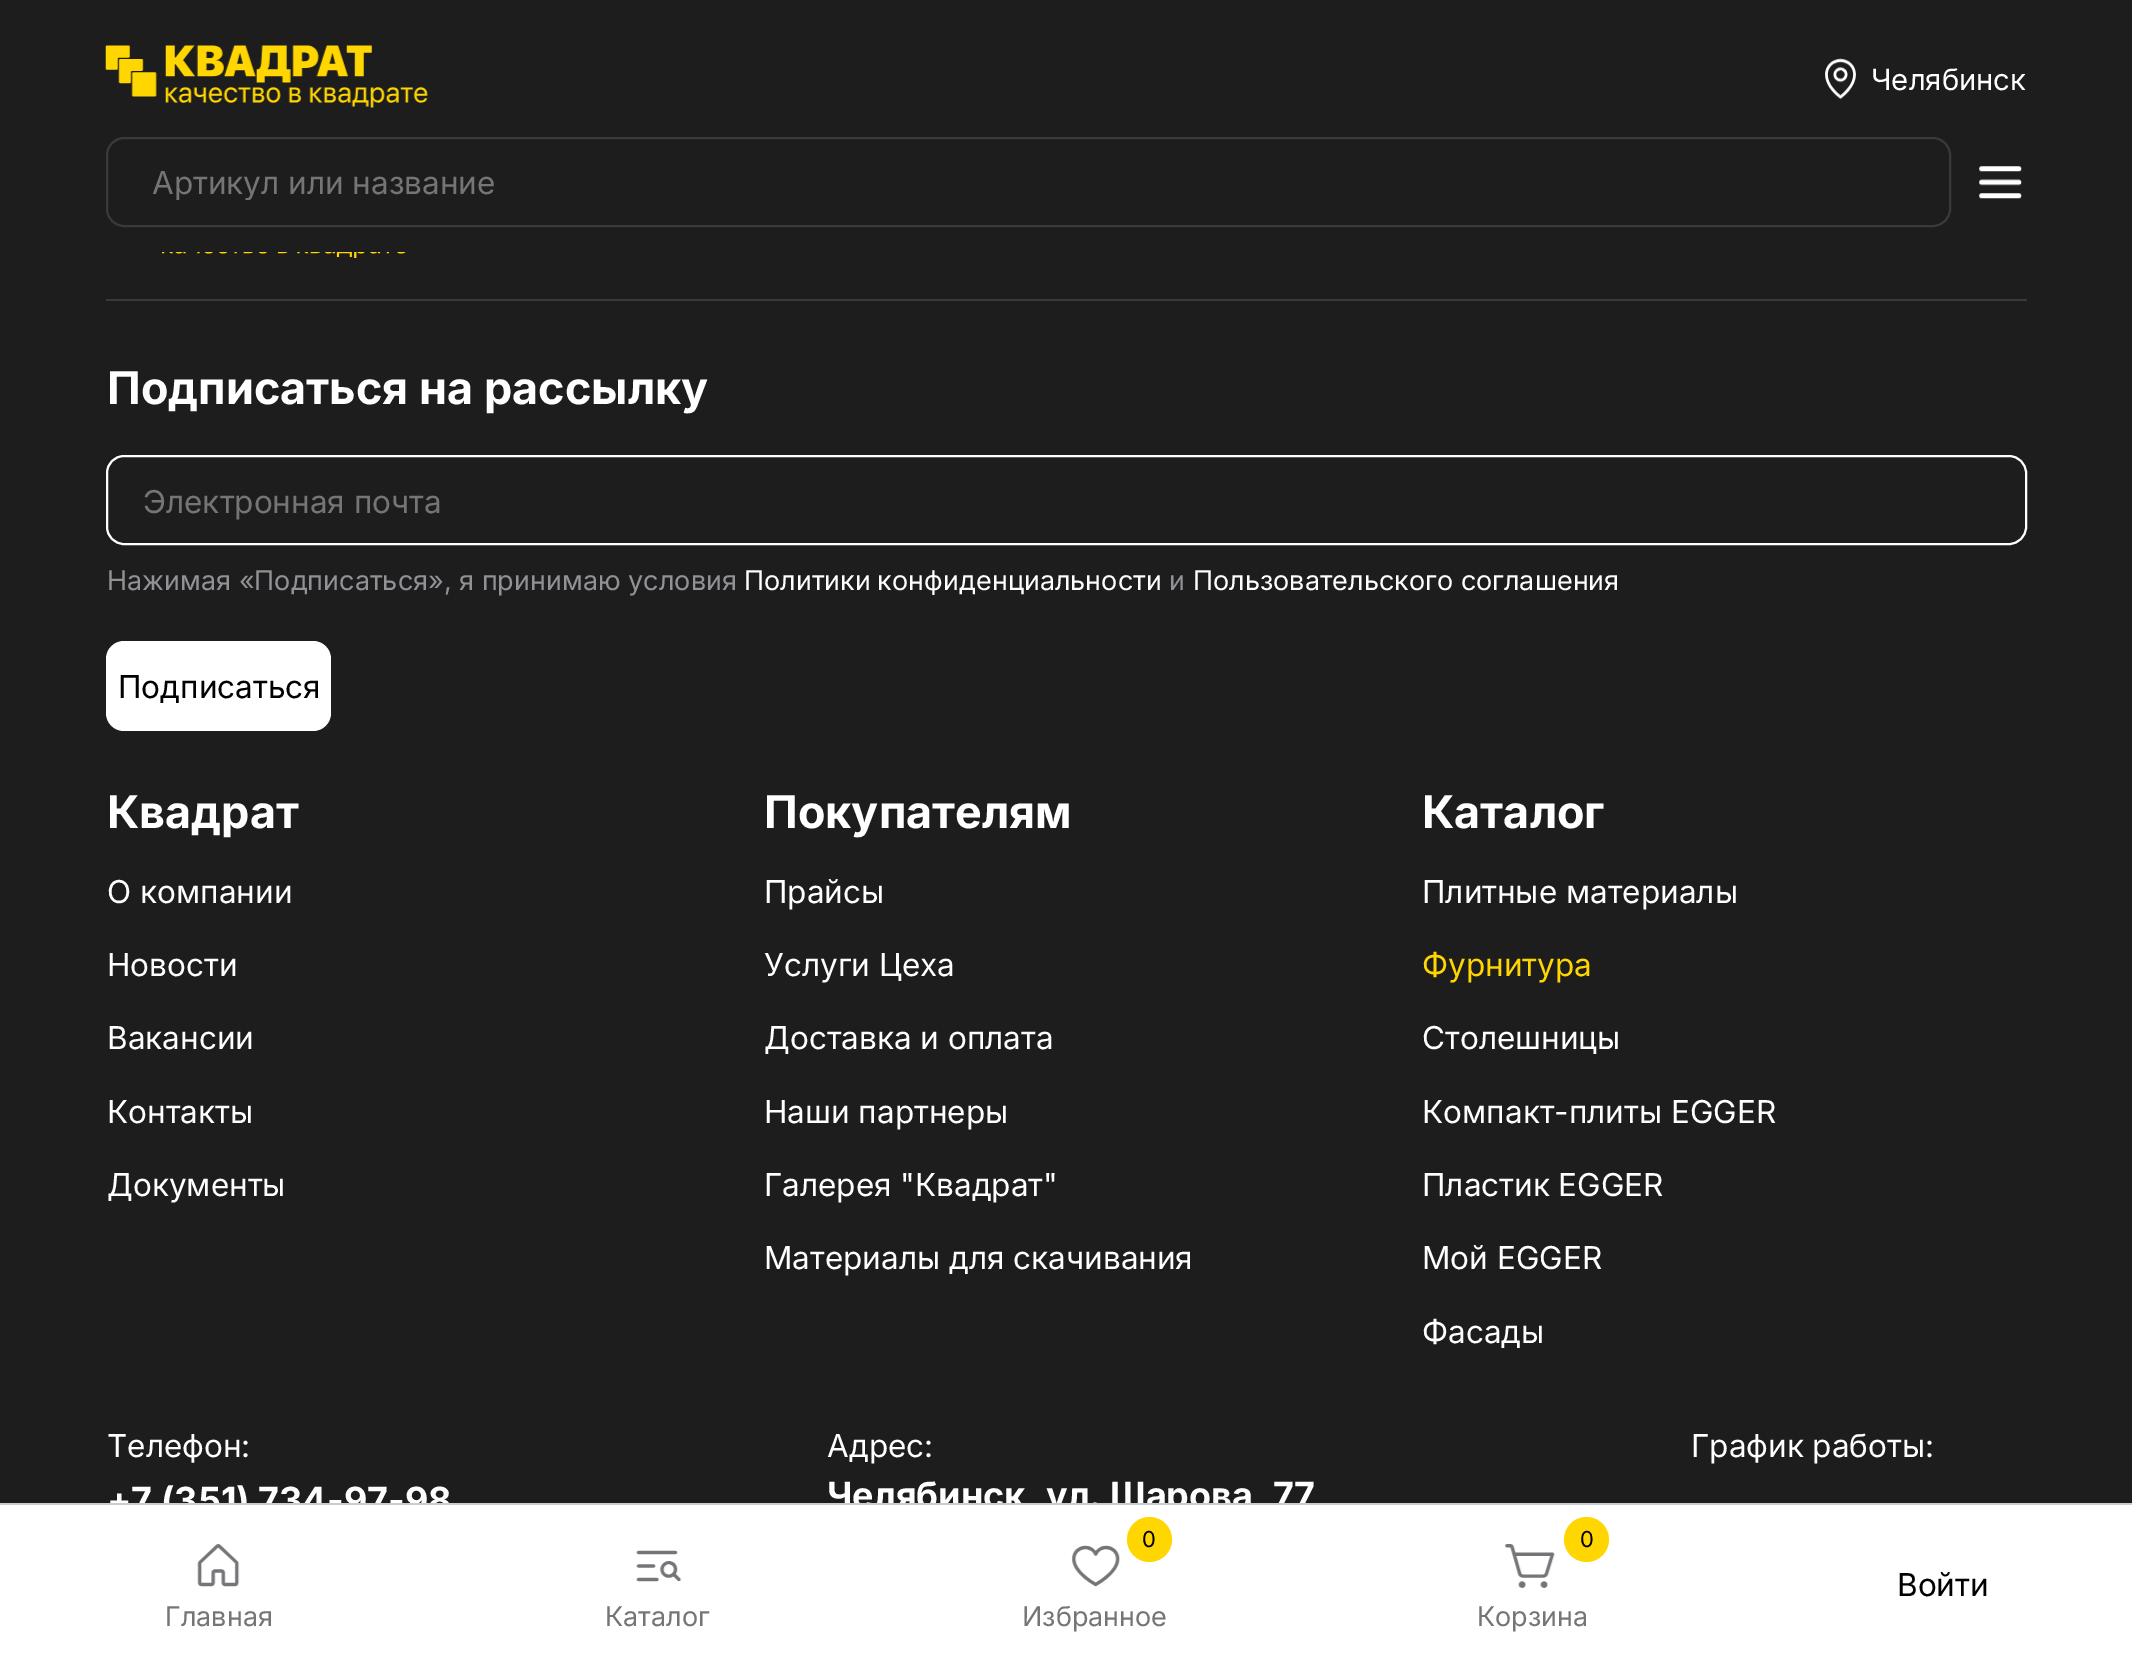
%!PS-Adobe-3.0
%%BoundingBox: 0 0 2132 1665
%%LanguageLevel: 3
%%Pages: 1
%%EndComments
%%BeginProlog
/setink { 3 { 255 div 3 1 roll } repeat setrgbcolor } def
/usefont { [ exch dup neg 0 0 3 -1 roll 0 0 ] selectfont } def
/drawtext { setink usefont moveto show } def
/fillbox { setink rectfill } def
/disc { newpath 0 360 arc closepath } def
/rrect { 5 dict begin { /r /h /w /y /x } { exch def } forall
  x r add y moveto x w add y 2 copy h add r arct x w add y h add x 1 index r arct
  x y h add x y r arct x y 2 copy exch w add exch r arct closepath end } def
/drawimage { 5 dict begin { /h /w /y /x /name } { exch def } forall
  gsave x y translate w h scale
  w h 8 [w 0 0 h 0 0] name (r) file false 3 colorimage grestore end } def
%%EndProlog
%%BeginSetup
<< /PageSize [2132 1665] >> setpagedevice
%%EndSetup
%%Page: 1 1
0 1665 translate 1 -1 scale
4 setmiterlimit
0 0 2132 1665 29 29 30 fillbox
(assets/img1.rgb) 105 45 323 63 drawimage
(assets/img2.rgb) 1825 58 31 42 drawimage
(Челябинск) 1871 90 /Inter-Regular 29.25 255 255 255 drawtext
58 58 60 setink
2 setlinewidth
107 138 1843 88 17 rrect stroke
gsave
151 162 1793 38 rectclip
(Артикул или название) 152 194 /Inter-Regular 31.5 117 117 117 drawtext
grestore
(assets/img3.rgb) 1979 166 43 33 drawimage
0 1505 2132 160 255 255 255 fillbox
(+7 \(351\) 734-97-98) 107 1513 /Inter-Bold 36 255 255 255 drawtext
(Челябинск, ул. Шарова, 77) 827 1508 /Inter-Bold 36 255 255 255 drawtext
0 1503 2132 2 203 204 210 fillbox
255 214 0 setink
1149.5 1539.5 22.5 disc fill
(0) 1142 1547 /Inter-Regular 22 0 0 0 drawtext
(assets/img4.rgb) 1071 1545 49 42 drawimage
(Избранное) 1022 1626 /Inter-Regular 27 117 117 117 drawtext
255 214 0 setink
1586.5 1539.5 22.5 disc fill
(0) 1580 1547 /Inter-Regular 22 0 0 0 drawtext
(assets/img5.rgb) 1505 1544 50 44 drawimage
(Корзина) 1477 1626 /Inter-Regular 27 117 117 117 drawtext
(Войти) 1897 1596 /Inter-Regular 31.5 0 0 0 drawtext
(assets/img6.rgb) 197 1544 43 43 drawimage
(Главная) 165 1626 /Inter-Regular 27 117 117 117 drawtext
(assets/img7.rgb) 636 1550 46 32 drawimage
(Каталог) 605 1626 /Inter-Regular 27 117 117 117 drawtext
106 299 1921 2 58 58 60 fillbox
(assets/img8.rgb) 162 252 244 6 drawimage
(Подписаться на рассылку) 107 404 /Inter-Bold 45 255 255 255 drawtext
107 456 1919 88 17 rrect stroke
(Электронная почта) 143 513 /Inter-Regular 31.5 117 117 117 drawtext
(Нажимая «Подписаться», я принимаю условия) 107 590 /Inter-Regular 27 145 146 150 drawtext
255 255 255 setink
744 590 moveto -1 0 32 (Политики конфиденциальности) widthshow
(и) 1169 590 /Inter-Regular 27 145 146 150 drawtext
(Пользовательского соглашения) 1193 590 /Inter-Regular 27 255 255 255 drawtext
106 641 225 90 18 rrect fill
(Подписаться) 118 698 /Inter-Regular 31.5 0 0 0 drawtext
(Квадрат) 107 828 /Inter-Bold 45 255 255 255 drawtext
(О компании) 107 903 /Inter-Regular 31.5 255 255 255 drawtext
(Новости) 107 976 /Inter-Regular 31.5 255 255 255 drawtext
(Вакансии) 107 1049 /Inter-Regular 31.5 255 255 255 drawtext
(Контакты) 107 1123 /Inter-Regular 31.5 255 255 255 drawtext
(Документы) 107 1196 /Inter-Regular 31.5 255 255 255 drawtext
(Покупателям) 764 828 /Inter-Bold 45 255 255 255 drawtext
(Прайсы) 764 903 /Inter-Regular 31.5 255 255 255 drawtext
(Услуги Цеха) 764 976 /Inter-Regular 31.5 255 255 255 drawtext
(Доставка и оплата) 764 1049 /Inter-Regular 31.5 255 255 255 drawtext
(Наши партнеры) 764 1123 /Inter-Regular 31.5 255 255 255 drawtext
(Галерея "Квадрат") 764 1196 /Inter-Regular 31.5 255 255 255 drawtext
(Материалы для скачивания) 764 1269 /Inter-Regular 31.5 255 255 255 drawtext
(Каталог) 1422 828 /Inter-Bold 45 255 255 255 drawtext
(Плитные материалы) 1422 903 /Inter-Regular 31.5 255 255 255 drawtext
(Фурнитура) 1422 976 /Inter-Regular 31.5 255 214 0 drawtext
(Столешницы) 1422 1049 /Inter-Regular 31.5 255 255 255 drawtext
(Компакт-плиты EGGER) 1422 1123 /Inter-Regular 31.5 255 255 255 drawtext
(Пластик EGGER) 1422 1196 /Inter-Regular 31.5 255 255 255 drawtext
(Мой EGGER) 1422 1269 /Inter-Regular 31.5 255 255 255 drawtext
(Фасады) 1422 1343 /Inter-Regular 31.5 255 255 255 drawtext
(Телефон:) 107 1457 /Inter-Regular 31.5 255 255 255 drawtext
(Адрес:) 827 1457 /Inter-Regular 31.5 255 255 255 drawtext
(График работы:) 1691 1457 /Inter-Regular 31.5 255 255 255 drawtext
showpage
%%EOF
